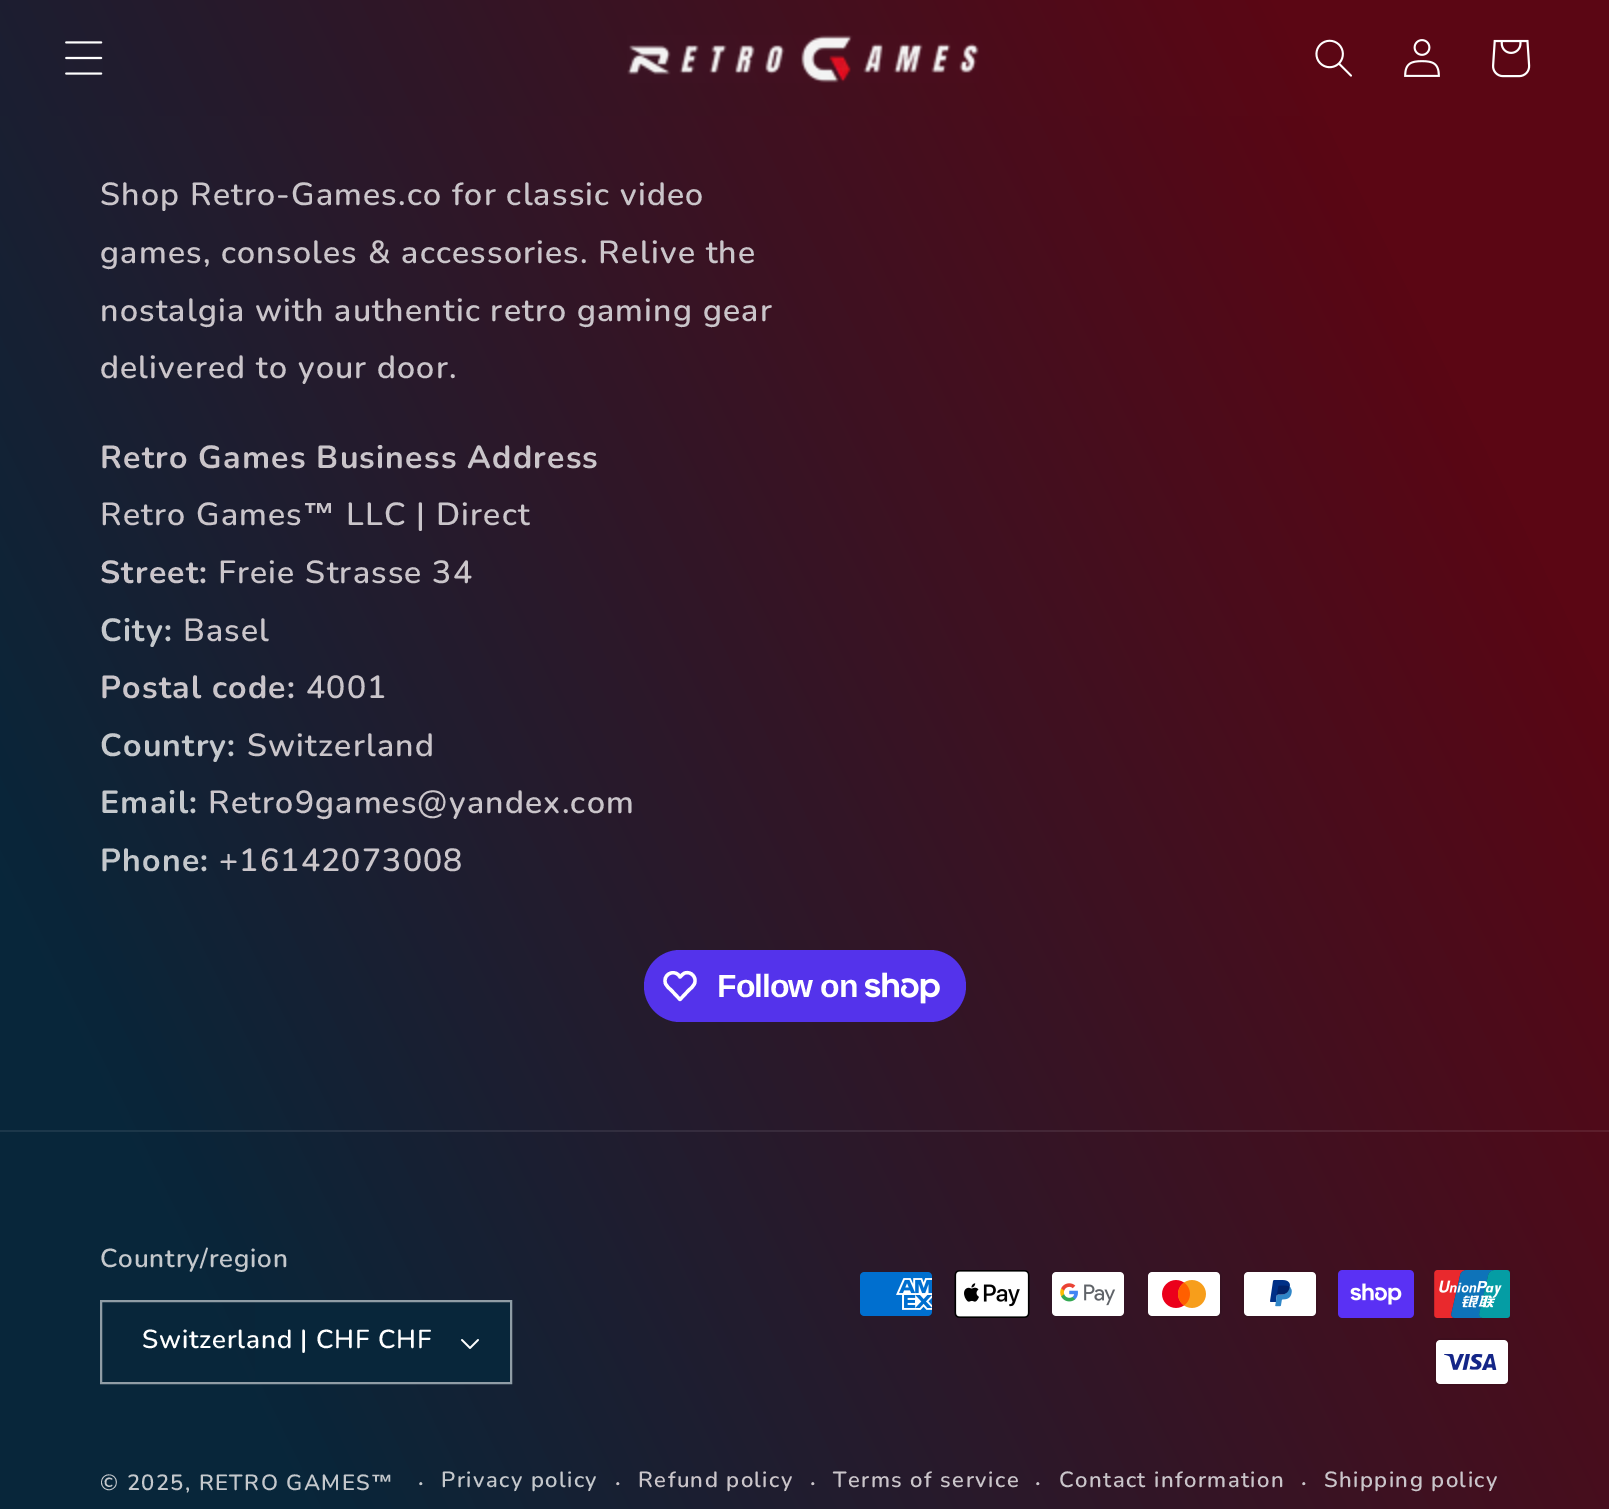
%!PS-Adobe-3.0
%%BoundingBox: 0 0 1609 1509
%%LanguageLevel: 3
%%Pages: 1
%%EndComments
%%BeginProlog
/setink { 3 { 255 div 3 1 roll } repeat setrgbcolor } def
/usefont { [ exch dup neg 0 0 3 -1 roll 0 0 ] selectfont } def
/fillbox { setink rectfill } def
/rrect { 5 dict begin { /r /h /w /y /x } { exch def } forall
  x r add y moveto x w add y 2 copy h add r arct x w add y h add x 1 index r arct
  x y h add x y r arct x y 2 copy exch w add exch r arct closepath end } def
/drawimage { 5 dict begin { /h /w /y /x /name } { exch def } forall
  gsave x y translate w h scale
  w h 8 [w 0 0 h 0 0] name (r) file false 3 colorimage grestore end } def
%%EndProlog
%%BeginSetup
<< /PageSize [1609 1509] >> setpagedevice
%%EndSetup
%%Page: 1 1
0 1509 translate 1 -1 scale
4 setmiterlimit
0 0 1609 1509 255 255 255 fillbox
gsave 0 0 moveto 1609 0 lineto 1609 116 lineto 0 116 lineto closepath clip newpath
<< /ShadingType 2 /ColorSpace /DeviceRGB /Coords [-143 1217 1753 293] /Extend [true true] /Function << /FunctionType 3 /Domain [0 1] /Functions [<< /FunctionType 2 /Domain [0 1] /C0 [0.031 0.149 0.227] /C1 [0.031 0.149 0.227] /N 1 >> << /FunctionType 2 /Domain [0 1] /C0 [0.031 0.149 0.227] /C1 [0.357 0.024 0.078] /N 1 >> << /FunctionType 2 /Domain [0 1] /C0 [0.357 0.024 0.078] /C1 [0.357 0.024 0.078] /N 1 >>] /Bounds [0.13 0.86] /Encode [0 1 0 1 0 1] >> >> shfill grestore
(assets/img1.rgb) 65 41 38 34 drawimage
(assets/img2.rgb) 627 35 352 48 drawimage
(assets/img3.rgb) 1315 39 37 38 drawimage
(assets/img4.rgb) 1404 39 36 38 drawimage
(assets/img5.rgb) 1492 39 39 39 drawimage
gsave 0 116 moveto 1609 116 lineto 1609 1509 lineto 0 1509 lineto closepath clip newpath
<< /ShadingType 2 /ColorSpace /DeviceRGB /Coords [-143 1217 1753 293] /Extend [true true] /Function << /FunctionType 3 /Domain [0 1] /Functions [<< /FunctionType 2 /Domain [0 1] /C0 [0.031 0.149 0.227] /C1 [0.031 0.149 0.227] /N 1 >> << /FunctionType 2 /Domain [0 1] /C0 [0.031 0.149 0.227] /C1 [0.357 0.024 0.078] /N 1 >> << /FunctionType 2 /Domain [0 1] /C0 [0.357 0.024 0.078] /C1 [0.357 0.024 0.078] /N 1 >>] /Bounds [0.13 0.86] /Encode [0 1 0 1 0 1] >> >> shfill grestore
gsave 0 1130 moveto 1609 1130 lineto 1609 1132 lineto 0 1132 lineto closepath clip newpath
<< /ShadingType 2 /ColorSpace /DeviceRGB /Coords [-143 1217 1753 293] /Extend [true true] /Function << /FunctionType 3 /Domain [0 1] /Functions [<< /FunctionType 2 /Domain [0 1] /C0 [0.11 0.216 0.29] /C1 [0.11 0.216 0.29] /N 1 >> << /FunctionType 2 /Domain [0 1] /C0 [0.11 0.216 0.29] /C1 [0.408 0.102 0.153] /N 1 >> << /FunctionType 2 /Domain [0 1] /C0 [0.408 0.102 0.153] /C1 [0.408 0.102 0.153] /N 1 >>] /Bounds [0.13 0.86] /Encode [0 1 0 1 0 1] >> >> shfill grestore
/Nunito-SemiBold 32 usefont
202 197 202 setink
100 205 moveto 1.2 0 (Shop Retro-Games.co for classic video) ashow
100 263 moveto 1.2 0 (games, consoles & accessories. Relive the) ashow
100 321 moveto 1.2 0 (nostalgia with authentic retro gaming gear) ashow
100 378 moveto 1.2 0 (delivered to your door.) ashow
/Nunito-Bold 32 usefont
100 468 moveto 1.2 0 (Retro Games Business Address) ashow
/Nunito-SemiBold 32 usefont
100 525 moveto 1.2 0 (Retro Games) ashow
/LiberationSans-Bold 32 usefont
303 525 moveto 1.2 0 (™) ashow
/Nunito-SemiBold 32 usefont
346 525 moveto 1.2 0 (LLC | Direct) ashow
/Nunito-Bold 32 usefont
100 583 moveto 1.2 0 (Street:) ashow
/Nunito-SemiBold 32 usefont
218 583 moveto 1.2 0 (Freie Strasse 34) ashow
/Nunito-Bold 32 usefont
196 200 204 setink
100 641 moveto 1.2 0 (City:) ashow
/Nunito-SemiBold 32 usefont
202 197 202 setink
183 641 moveto 1.2 0 (Basel) ashow
/Nunito-Bold 32 usefont
100 698 moveto 1.2 0 (Postal code:) ashow
/Nunito-SemiBold 32 usefont
306 698 moveto 1.2 0 (4001) ashow
/Nunito-Bold 32 usefont
196 200 204 setink
100 756 moveto 1.2 0 (Country:) ashow
/Nunito-SemiBold 32 usefont
202 197 202 setink
247 756 moveto 1.2 0 (Switzerland) ashow
/Nunito-Bold 32 usefont
196 200 204 setink
100 813 moveto 1.2 0 (Email:) ashow
/Nunito-SemiBold 32 usefont
202 197 202 setink
208 813 moveto 1.2 0 (Retro9games@yandex.com) ashow
/Nunito-Bold 32 usefont
196 200 204 setink
100 871 moveto 1.2 0 (Phone:) ashow
/Nunito-SemiBold 32 usefont
202 197 202 setink
219 871 moveto 1.2 0 (+16142073008) ashow
84 51 235 setink
644 950 322 72 36 rrect fill
255 255 255 setink
3.3 setlinewidth
1 setlinejoin
678.5 975 moveto 680 977 lineto 681.5 975.5 683 973.5 685 973 curveto 691 971 697 977.5 694.5 983.5 curveto 693.5 986.5 690.5 988.5 688.5 990.5 curveto 680 999.5 lineto 671.5 990.5 lineto 669.5 988.5 666.5 986.5 665.5 983.5 curveto 662.5 975.5 672.5 969 678.5 975 curveto closepath stroke
/LiberationSans-Bold 32 usefont
717 997 moveto -1 0 (Follow on) ashow
(assets/img6.rgb) 865 972 75 32 drawimage
/Nunito-SemiBold 26 usefont
196 200 204 setink
100 1267 moveto 0.8 0 (Country/region) ashow
255 1302 255 80 8 38 58 fillbox
(assets/img7.rgb) 461 1339 18 10 drawimage
144 157 166 setink
2 setlinewidth
0 setlinejoin
101 1301 410 82 rectstroke
255 255 255 setink
142 1348 moveto 0.8 0 (Switzerland | CHF CHF) ashow
(assets/img8.rgb) 860 1272 72 44 drawimage
(assets/img9.rgb) 954 1270 76 48 drawimage
(assets/img10.rgb) 1052 1272 72 44 drawimage
(assets/img11.rgb) 1148 1270 74 48 drawimage
(assets/img12.rgb) 1242 1270 76 48 drawimage
(assets/img13.rgb) 1338 1270 76 48 drawimage
(assets/img14.rgb) 1434 1270 76 48 drawimage
(assets/img15.rgb) 1434 1338 76 48 drawimage
/Nunito-SemiBold 22 usefont
196 200 204 setink
100 1490 moveto 1.4 0 (© 2025, RETRO GAMES) ashow
/LiberationSans-Bold 22 usefont
371 1490 moveto 1.4 0 (™) ashow
/Nunito-SemiBold 24 usefont
418 1490 moveto 1.4 0 (·) ashow
/Nunito-SemiBold 22 usefont
441 1487 moveto 1.4 0 (Privacy policy) ashow
/Nunito-SemiBold 24 usefont
202 197 202 setink
615 1490 moveto 1.4 0 (·) ashow
/Nunito-SemiBold 22 usefont
638 1487 moveto 1.4 0 (Refund policy) ashow
/Nunito-SemiBold 24 usefont
810 1490 moveto 1.4 0 (·) ashow
/Nunito-SemiBold 22 usefont
833 1487 moveto 1.4 0 (Terms of service) ashow
/Nunito-SemiBold 24 usefont
1035 1490 moveto 1.4 0 (·) ashow
/Nunito-SemiBold 22 usefont
1059 1487 moveto 1.4 0 (Contact information) ashow
/Nunito-SemiBold 24 usefont
1301 1490 moveto 1.4 0 (·) ashow
/Nunito-SemiBold 22 usefont
1324 1487 moveto 1.4 0 (Shipping policy) ashow
showpage
%%EOF
